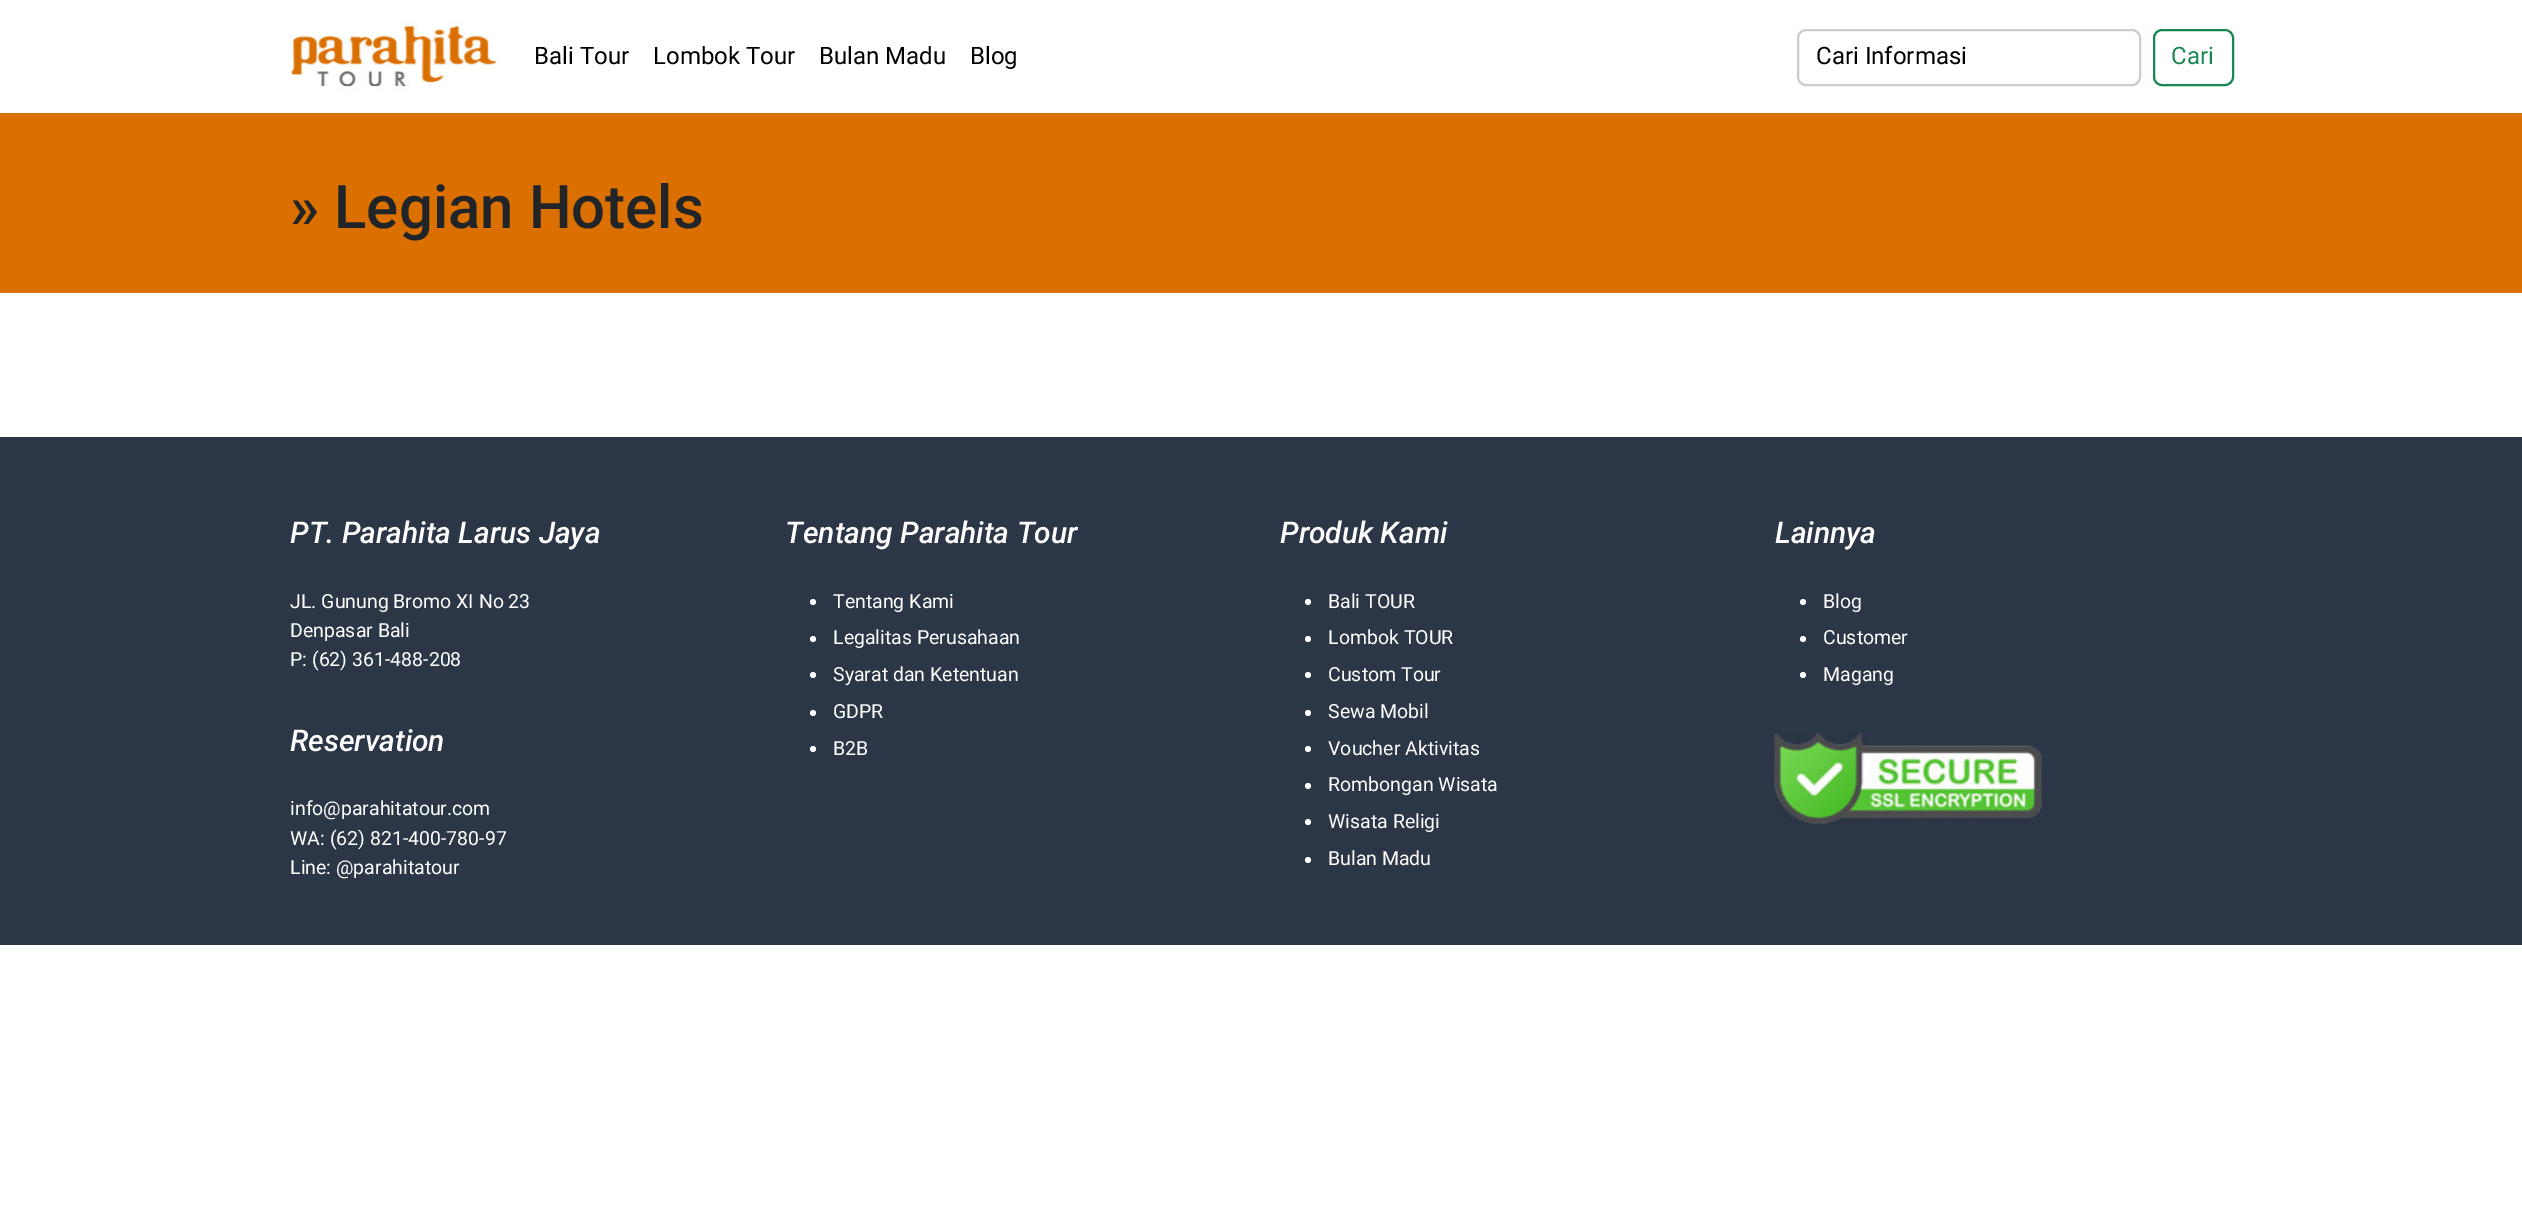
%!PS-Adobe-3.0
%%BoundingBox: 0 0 2522 1208
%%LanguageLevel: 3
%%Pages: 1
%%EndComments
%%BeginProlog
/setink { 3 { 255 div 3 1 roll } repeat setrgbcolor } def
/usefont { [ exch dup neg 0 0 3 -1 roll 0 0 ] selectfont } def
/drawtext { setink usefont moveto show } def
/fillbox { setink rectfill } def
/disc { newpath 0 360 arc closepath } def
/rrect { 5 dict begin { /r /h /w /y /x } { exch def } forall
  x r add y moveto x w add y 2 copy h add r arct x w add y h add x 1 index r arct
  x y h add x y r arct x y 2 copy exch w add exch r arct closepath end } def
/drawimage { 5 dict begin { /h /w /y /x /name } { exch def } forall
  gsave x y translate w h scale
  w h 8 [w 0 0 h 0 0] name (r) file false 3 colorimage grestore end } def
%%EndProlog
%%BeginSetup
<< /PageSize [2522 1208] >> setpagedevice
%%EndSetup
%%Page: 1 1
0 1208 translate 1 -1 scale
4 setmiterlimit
0 0 2522 1208 255 255 255 fillbox
(assets/img1.rgb) 289 19 208 72 drawimage
(Bali Tour) 534 64 /Roboto-Regular 24 0 0 0 drawtext
(Lombok Tour) 653 64 /Roboto-Regular 24 0 0 0 drawtext
(Bulan Madu) 819 64 /Roboto-Regular 24 0 0 0 drawtext
(Blog) 970 64 /Roboto-Regular 24 0 0 0 drawtext
204 204 204 setink
2 setlinewidth
1798 30 342 55 8 rrect stroke
(Cari Informasi) 1816 64 /Roboto-Regular 24 0 0 0 drawtext
25 135 84 setink
2154 30 79 55 8 rrect stroke
(Cari) 2171 64 /Roboto-Regular 24 25 135 84 drawtext
0 113 2522 180 219 112 0 fillbox
(» Legian Hotels) 290 228 /Roboto-Medium 60 33 37 41 drawtext
0 437 2522 508 43 54 70 fillbox
(PT. Parahita Larus Jaya) 290 543 /Roboto-MediumItalic 30 255 255 255 drawtext
(JL. Gunung Bromo XI No 23) 290 608 /Roboto-Regular 19.5 255 255 255 drawtext
(Denpasar Bali) 290 637 /Roboto-Regular 19.5 255 255 255 drawtext
(P: \(62\) 361-488-208) 290 666 /Roboto-Regular 19.5 255 255 255 drawtext
(Reservation) 290 751 /Roboto-MediumItalic 30 255 255 255 drawtext
(info@parahitatour.com) 290 815 /Roboto-Regular 19.5 255 255 255 drawtext
(WA: \(62\) 821-400-780-97) 290 845 /Roboto-Regular 19.5 255 255 255 drawtext
(Line: @parahitatour) 290 874 /Roboto-Regular 19.5 255 255 255 drawtext
(Tentang Parahita Tour) 785 543 /Roboto-MediumItalic 30 255 255 255 drawtext
813 602 3 disc fill
(Tentang Kami) 833 608 /Roboto-Regular 19.5 255 255 255 drawtext
813 639 3 disc fill
(Legalitas Perusahaan) 833 644 /Roboto-Regular 19.5 255 255 255 drawtext
813 675 3 disc fill
(Syarat dan Ketentuan) 833 681 /Roboto-Regular 19.5 255 255 255 drawtext
813 713 3 disc fill
(GDPR) 833 718 /Roboto-Regular 19.5 255 255 255 drawtext
813 749 3 disc fill
(B2B) 833 755 /Roboto-Regular 19.5 255 255 255 drawtext
(Produk Kami) 1280 543 /Roboto-MediumItalic 30 255 255 255 drawtext
1308 602 3 disc fill
(Bali TOUR) 1328 608 /Roboto-Regular 19.5 255 255 255 drawtext
1308 639 3 disc fill
(Lombok TOUR) 1328 644 /Roboto-Regular 19.5 255 255 255 drawtext
1308 675 3 disc fill
(Custom Tour) 1328 681 /Roboto-Regular 19.5 255 255 255 drawtext
1308 713 3 disc fill
(Sewa Mobil) 1328 718 /Roboto-Regular 19.5 255 255 255 drawtext
1308 749 3 disc fill
(Voucher Aktivitas) 1328 755 /Roboto-Regular 19.5 255 255 255 drawtext
1308 786 3 disc fill
(Rombongan Wisata) 1328 791 /Roboto-Regular 19.5 255 255 255 drawtext
1308 822 3 disc fill
(Wisata Religi) 1328 828 /Roboto-Regular 19.5 255 255 255 drawtext
1308 860 3 disc fill
(Bulan Madu) 1328 865 /Roboto-Regular 19.5 255 255 255 drawtext
(Lainnya) 1775 543 /Roboto-MediumItalic 30 255 255 255 drawtext
1803 602 3 disc fill
(Blog) 1823 608 /Roboto-Regular 19.5 255 255 255 drawtext
1803 639 3 disc fill
(Customer) 1823 644 /Roboto-Regular 19.5 255 255 255 drawtext
1803 675 3 disc fill
(Magang) 1823 681 /Roboto-Regular 19.5 255 255 255 drawtext
(assets/img2.rgb) 1774 733 268 91 drawimage
showpage
%%EOF
